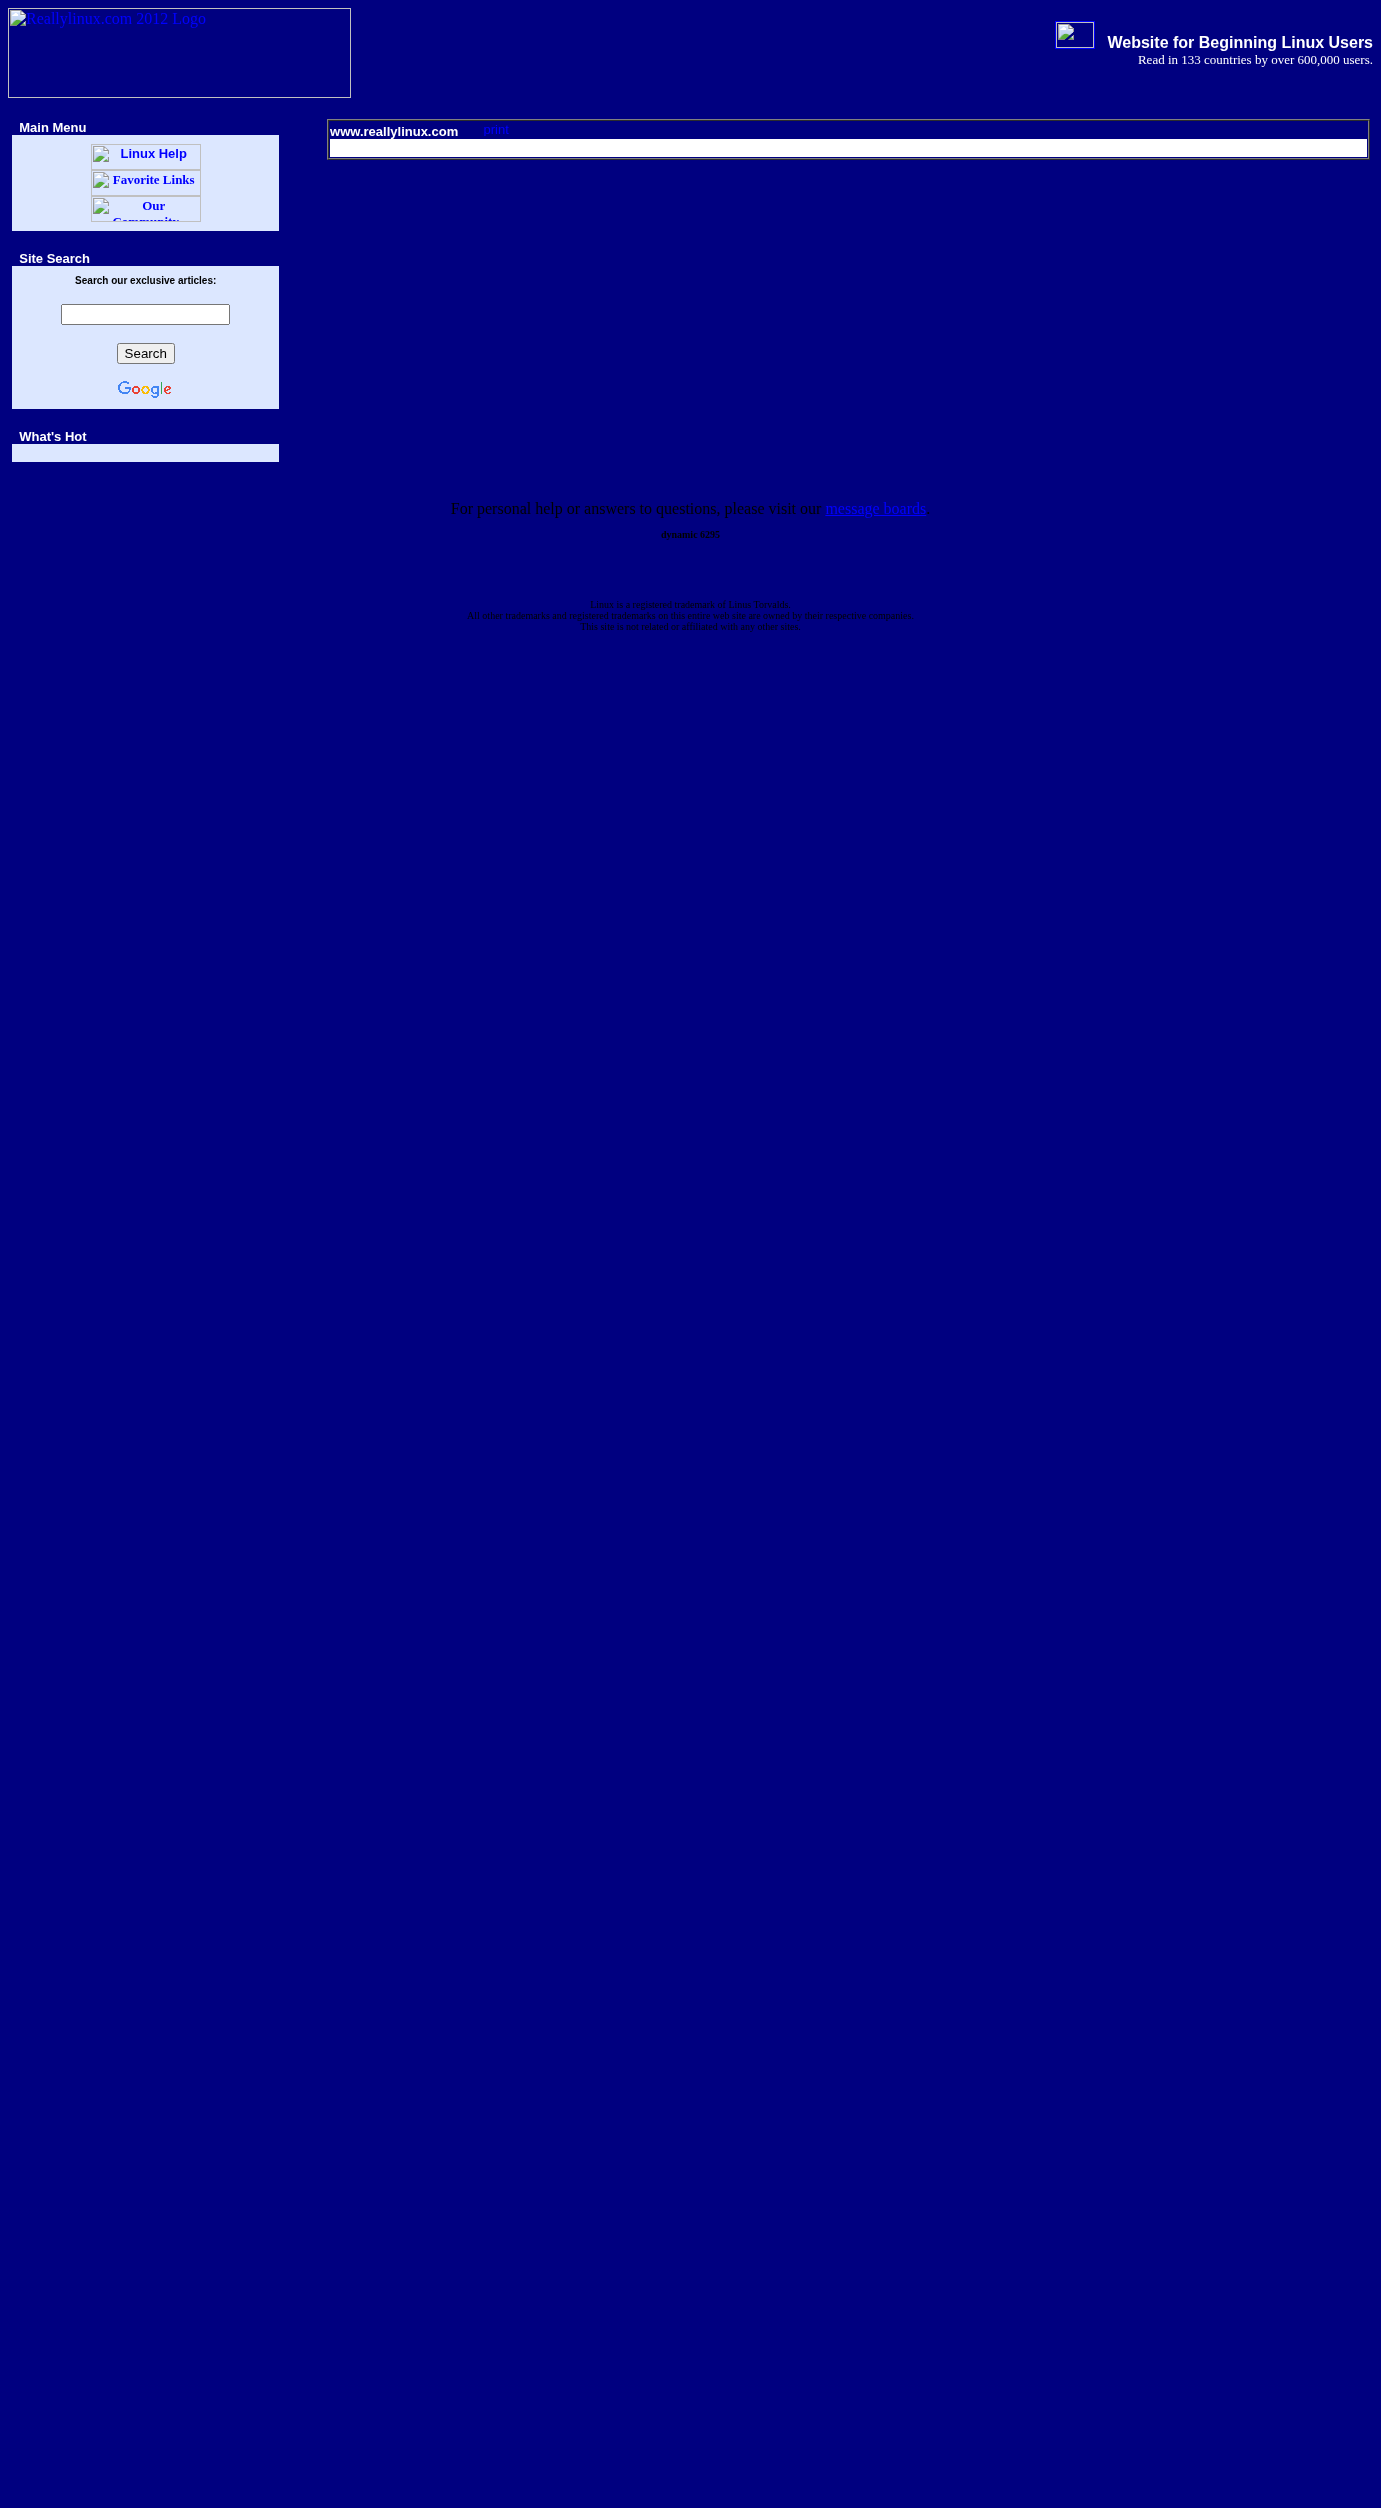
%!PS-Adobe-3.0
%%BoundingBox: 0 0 1381 2508
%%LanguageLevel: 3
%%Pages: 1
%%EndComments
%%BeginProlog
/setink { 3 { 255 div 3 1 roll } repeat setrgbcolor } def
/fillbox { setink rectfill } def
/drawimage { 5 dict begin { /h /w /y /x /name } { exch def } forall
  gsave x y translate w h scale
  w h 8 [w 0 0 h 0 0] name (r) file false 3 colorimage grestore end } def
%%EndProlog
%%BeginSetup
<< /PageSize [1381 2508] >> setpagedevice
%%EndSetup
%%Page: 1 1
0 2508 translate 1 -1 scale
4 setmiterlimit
0 0 1381 2508 255 255 255 fillbox
(assets/img1.rgb) 0 0 1381 2508 drawimage
showpage
%%EOF
